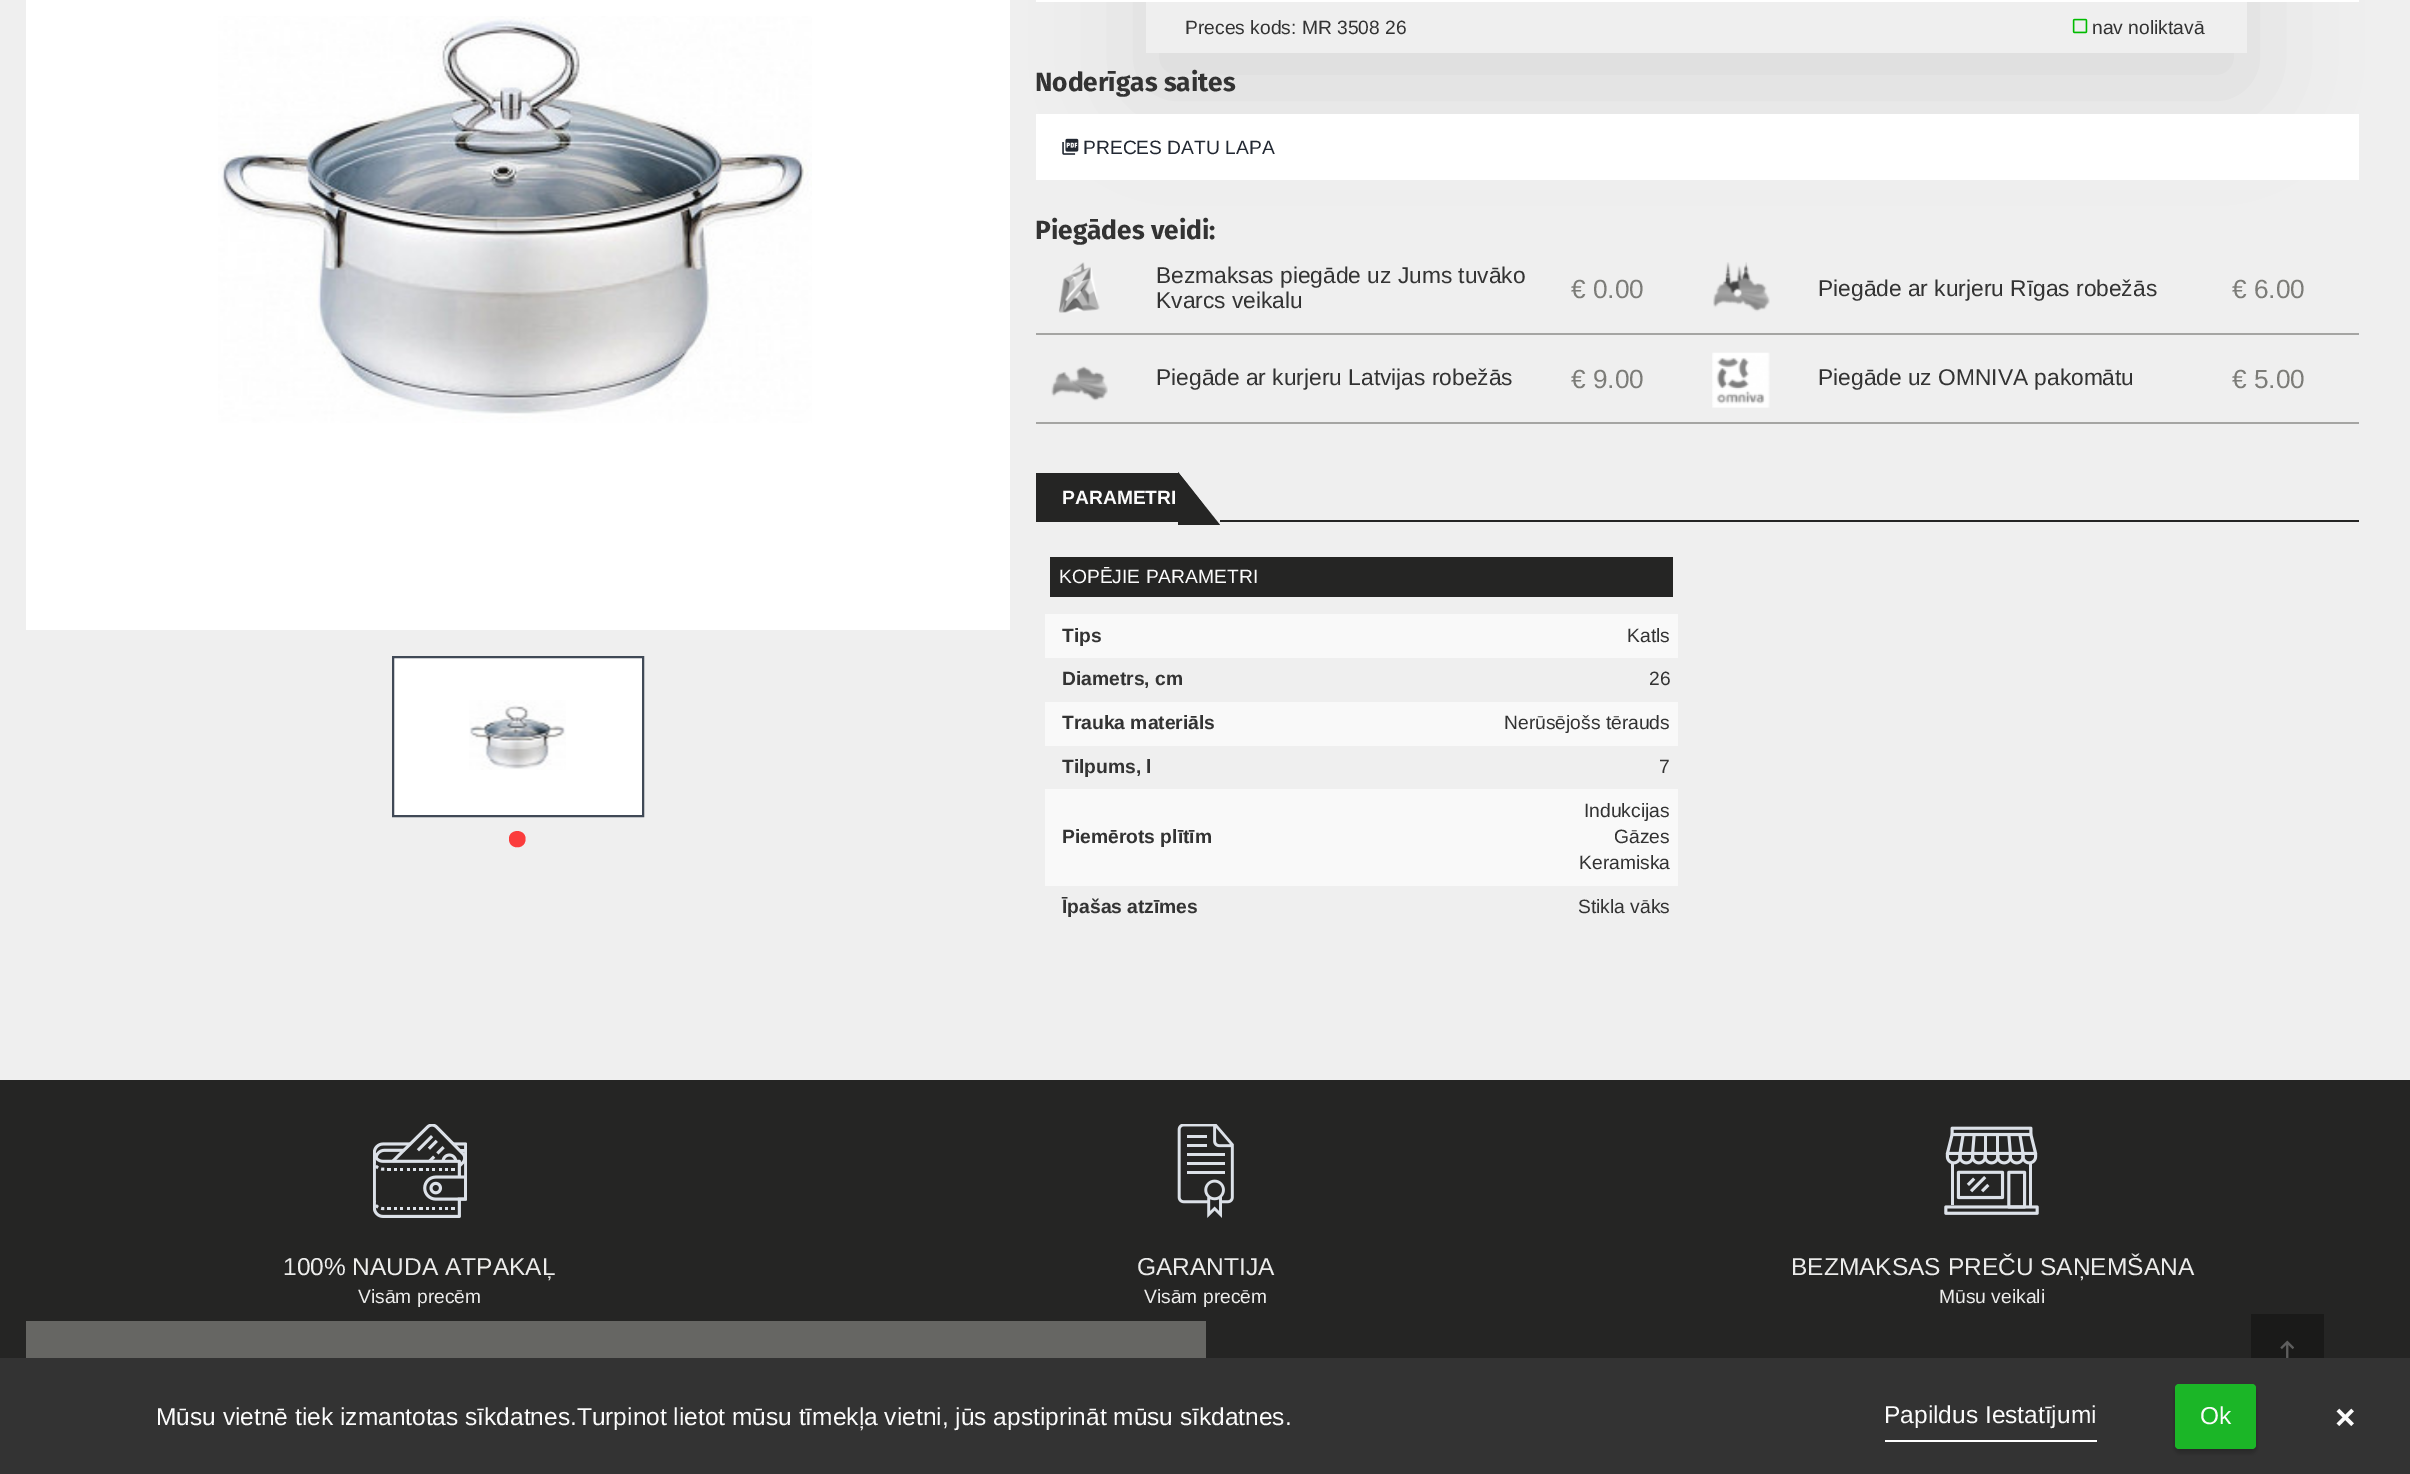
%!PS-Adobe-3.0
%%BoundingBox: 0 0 2410 1474
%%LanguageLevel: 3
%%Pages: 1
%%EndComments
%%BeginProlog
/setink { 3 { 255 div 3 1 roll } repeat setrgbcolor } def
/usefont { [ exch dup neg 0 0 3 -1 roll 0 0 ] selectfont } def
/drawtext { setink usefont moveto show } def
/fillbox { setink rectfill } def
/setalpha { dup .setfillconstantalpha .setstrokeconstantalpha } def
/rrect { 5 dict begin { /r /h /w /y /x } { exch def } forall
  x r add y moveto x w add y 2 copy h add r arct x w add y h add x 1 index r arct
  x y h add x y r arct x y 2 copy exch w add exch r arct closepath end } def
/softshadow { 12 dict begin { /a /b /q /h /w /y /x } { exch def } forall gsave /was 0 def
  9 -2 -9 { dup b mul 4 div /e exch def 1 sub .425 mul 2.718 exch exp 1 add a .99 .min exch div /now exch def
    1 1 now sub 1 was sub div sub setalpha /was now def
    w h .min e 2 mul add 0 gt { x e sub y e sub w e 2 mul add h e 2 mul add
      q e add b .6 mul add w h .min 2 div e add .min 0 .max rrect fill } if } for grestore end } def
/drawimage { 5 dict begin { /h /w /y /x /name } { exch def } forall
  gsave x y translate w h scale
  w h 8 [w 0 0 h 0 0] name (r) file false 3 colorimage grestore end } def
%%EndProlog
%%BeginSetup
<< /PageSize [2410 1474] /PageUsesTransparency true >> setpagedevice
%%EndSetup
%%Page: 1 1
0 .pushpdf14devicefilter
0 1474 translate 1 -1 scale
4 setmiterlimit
0 0 2410 1474 239 239 239 fillbox
26 0 984 630 255 255 255 fillbox
(assets/img1.rgb) 218 16 594 407 drawimage
393 657 moveto 643 657 lineto 643 816 lineto 393 816 lineto closepath gsave fill grestore
64 73 86 setink
2 setlinewidth
stroke
(assets/img2.rgb) 469 700 97 70 drawimage
251 60 60 setink
525.5 839 moveto 525.5 828.5 509 828.5 509 839 curveto 509 850 525.5 850 525.5 839 curveto closepath fill
gsave
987 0 moveto 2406 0 lineto 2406 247 lineto 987 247 lineto closepath 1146 -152 moveto 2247 -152 lineto 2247 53 lineto 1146 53 lineto closepath eoclip newpath
217 217 217 setink
1146 -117 1101 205 0 52.5 1 softshadow
grestore
1036 0 1323 2 255 255 255 fillbox
1167 52 1059 1 239 239 239 fillbox
(Preces kods: MR 3508 26) 1185 34 /LiberationSans-Regular 19.25 51 51 51 drawtext
(assets/img3.rgb) 2072 18 16 16 drawimage
(nav noliktavā) 2092 34 /LiberationSans-Regular 19.25 51 51 51 drawtext
(Noderīgas saites) 1035 91 /FiraSans-Bold 26.25 51 51 51 drawtext
1036 114 1323 66 255 255 255 fillbox
(assets/img4.rgb) 1062 138 17 17 drawimage
(PRECES DATU LAPA) 1083 154 /LiberationSans-Regular 19.25 34 40 50 drawtext
(Piegādes veidi:) 1035 239 /FiraSans-Bold 26.25 51 51 51 drawtext
1036 333 1323 2 165 165 163 fillbox
(assets/img5.rgb) 1058 262 42 51 drawimage
(Bezmaksas piegāde uz Jums tuvāko) 1156 283 /LiberationSans-Regular 22.75 51 51 51 drawtext
(Kvarcs veikalu) 1156 308 /LiberationSans-Regular 22.75 51 51 51 drawtext
(€ 0.00) 1571 298 /LiberationSans-Regular 26.25 124 124 120 drawtext
(assets/img6.rgb) 1713 262 57 50 drawimage
(Piegāde ar kurjeru Rīgas robežās) 1818 296 /LiberationSans-Regular 22.75 51 51 51 drawtext
(€ 6.00) 2232 298 /LiberationSans-Regular 26.25 124 124 120 drawtext
1036 422 1323 2 165 165 163 fillbox
(assets/img7.rgb) 1051 366 57 35 drawimage
(Piegāde ar kurjeru Latvijas robežās) 1156 385 /LiberationSans-Regular 22.75 51 51 51 drawtext
(€ 9.00) 1571 388 /LiberationSans-Regular 26.25 124 124 120 drawtext
(assets/img8.rgb) 1712 352 58 56 drawimage
(Piegāde uz OMNIVA pakomātu) 1818 385 /LiberationSans-Regular 22.75 51 51 51 drawtext
(€ 5.00) 2232 388 /LiberationSans-Regular 26.25 124 124 120 drawtext
1216 520 1143 2 37 37 36 fillbox
1036 473 166 49 37 37 36 fillbox
(PARAMETRI) 1062 504 /LiberationSans-Bold 19.25 251 251 251 drawtext
239 239 239 setink
1178 472 moveto 1220 472 lineto 1220 525 lineto closepath fill
37 37 36 setink
1178 525 moveto 1178 472 lineto 1220 525 lineto closepath fill
1050 557 623 40 37 37 36 fillbox
(KOPĒJIE PARAMETRI) 1059 583 /LiberationSans-Regular 19.25 251 251 251 drawtext
1045 614 633 44 249 249 249 fillbox
(Tips) 1062 642 /LiberationSans-Bold 19.25 51 51 51 drawtext
(Katls) 1627 642 /LiberationSans-Regular 19.25 51 51 51 drawtext
(Diametrs, cm) 1062 685 /LiberationSans-Bold 19.25 51 51 51 drawtext
(26) 1649 685 /LiberationSans-Regular 19.25 51 51 51 drawtext
1045 702 633 44 249 249 249 fillbox
(Trauka materiāls) 1062 729 /LiberationSans-Bold 19.25 51 51 51 drawtext
(Nerūsējošs tērauds) 1504 729 /LiberationSans-Regular 19.25 51 51 51 drawtext
(Tilpums, l) 1062 773 /LiberationSans-Bold 19.25 51 51 51 drawtext
(7) 1659 773 /LiberationSans-Regular 19.25 51 51 51 drawtext
1045 789 633 97 249 249 249 fillbox
(Piemērots plītīm) 1062 843 /LiberationSans-Bold 19.25 51 51 51 drawtext
(Indukcijas) 1584 817 /LiberationSans-Regular 19.25 51 51 51 drawtext
(Gāzes) 1614 843 /LiberationSans-Regular 19.25 51 51 51 drawtext
(Keramiska) 1579 869 /LiberationSans-Regular 19.25 51 51 51 drawtext
(Īpašas atzīmes) 1062 913 /LiberationSans-Bold 19.25 51 51 51 drawtext
(Stikla vāks) 1578 913 /LiberationSans-Regular 19.25 51 51 51 drawtext
0 1080 2410 278 37 37 36 fillbox
(assets/img9.rgb) 373 1124 94 94 drawimage
(100% NAUDA ATPAKAĻ) 283 1275 /LiberationSans-Regular 24.5 236 236 235 drawtext
(Visām precēm) 358 1303 /LiberationSans-Regular 19.25 236 236 235 drawtext
(assets/img10.rgb) 1177 1124 57 94 drawimage
(GARANTIJA) 1137 1275 /LiberationSans-Regular 24.5 236 236 235 drawtext
(Visām precēm) 1144 1303 /LiberationSans-Regular 19.25 236 236 235 drawtext
(assets/img11.rgb) 1944 1126 95 89 drawimage
(BEZMAKSAS PREČU SAŅEMŠANA) 1791 1275 /LiberationSans-Regular 24.5 236 236 235 drawtext
(Mūsu veikali) 1939 1303 /LiberationSans-Regular 19.25 236 236 235 drawtext
26 1321 1180 37 102 102 99 fillbox
2251 1314 73 44 26 26 25 fillbox
(assets/img12.rgb) 2280 1340 14 18 drawimage
0 1358 2410 116 51 51 51 fillbox
(Mūsu vietnē tiek izmantotas sīkdatnes.Turpinot lietot mūsu tīmekļa vietni, jūs apstiprināt mūsu sīkdatnes.) 156 1425 /LiberationSans-Regular 24.5 251 251 251 drawtext
1885 1440 212 2 255 255 255 fillbox
(Papildus Iestatījumi) 1884 1423 /LiberationSans-Regular 24.5 251 251 251 drawtext
0 0 0 setink
2175 1388 81 65 4 2.5 0.2 softshadow
27 182 39 setink
2175 1384 81 65 4 rrect fill
(Ok) 2200 1424 /LiberationSans-Regular 24.5 251 251 251 drawtext
(×) 2335 1429 /LiberationSans-Bold 35 251 251 251 drawtext
.poppdf14devicefilter showpage
%%EOF
